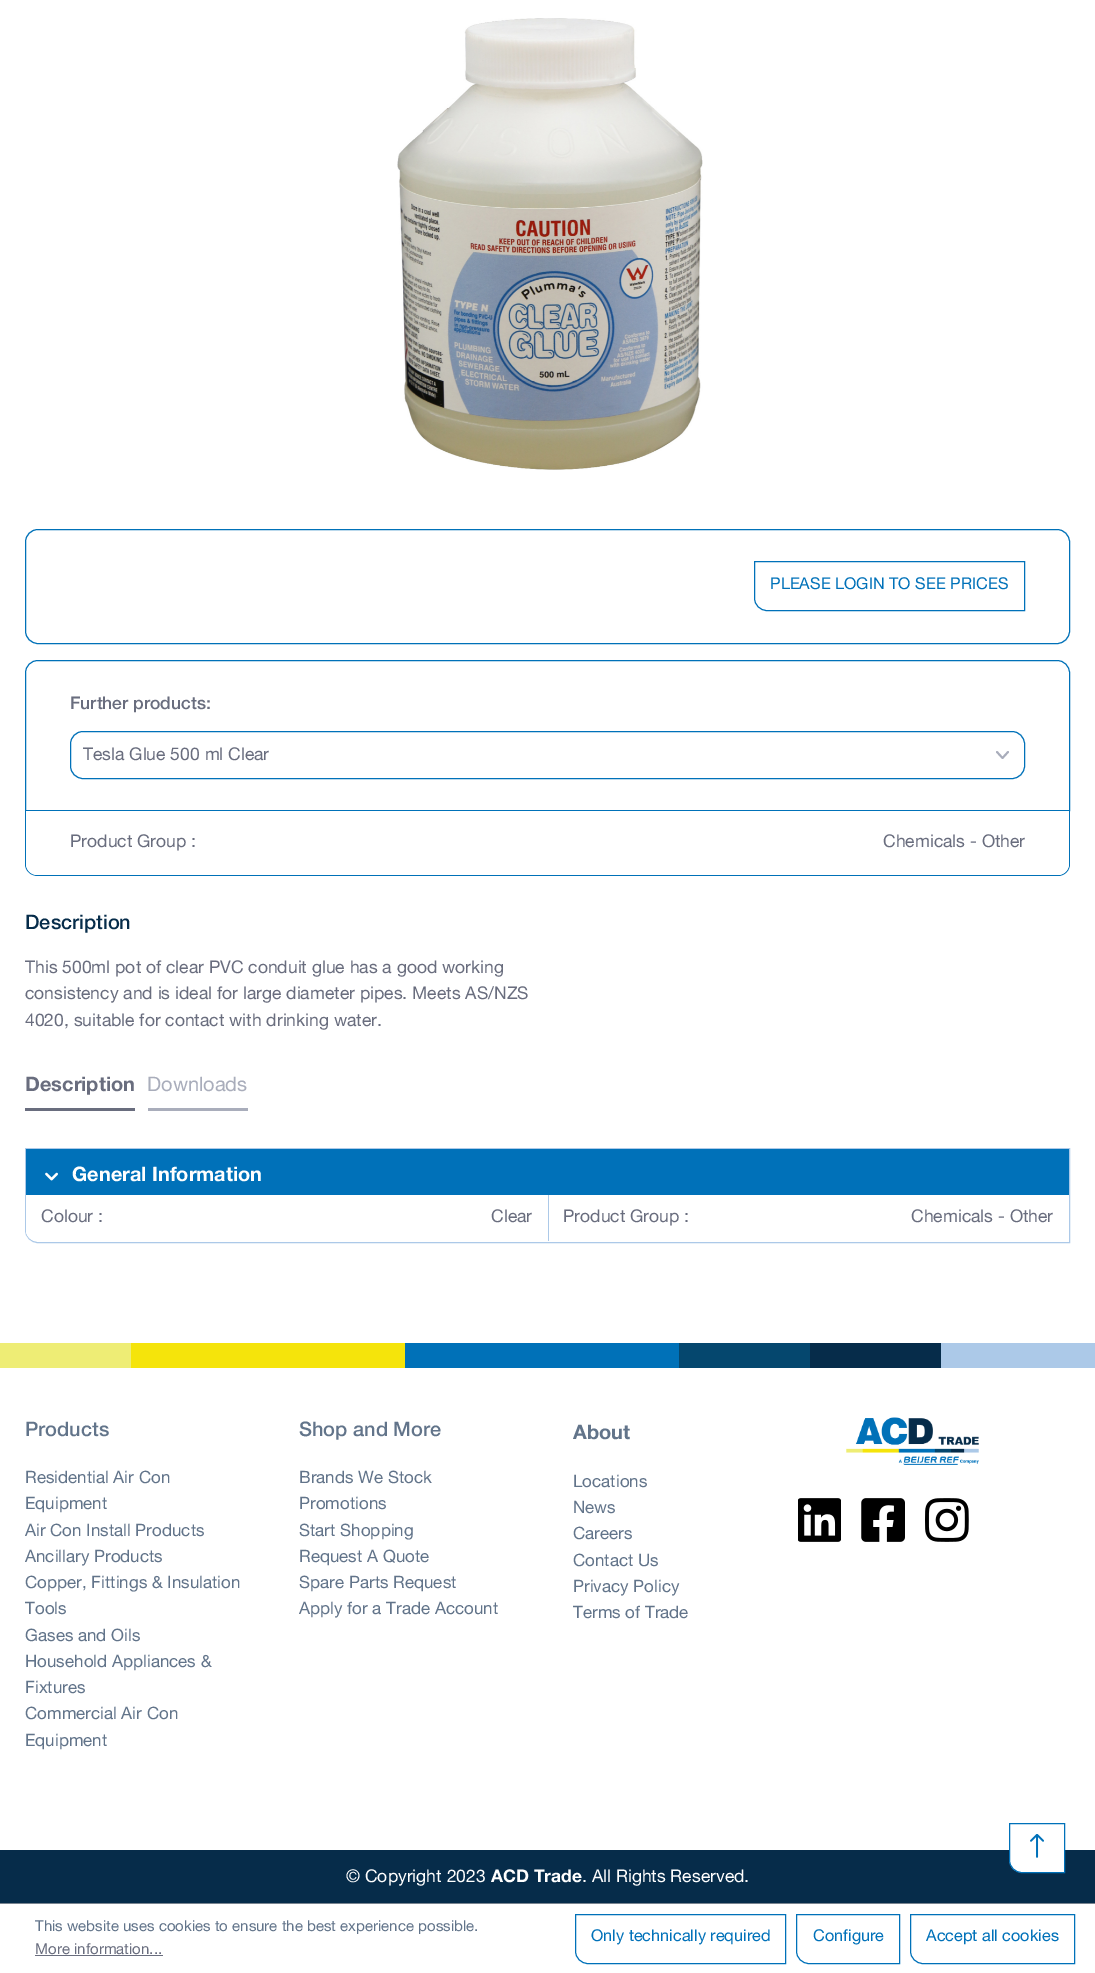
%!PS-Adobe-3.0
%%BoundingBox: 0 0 1095 1973
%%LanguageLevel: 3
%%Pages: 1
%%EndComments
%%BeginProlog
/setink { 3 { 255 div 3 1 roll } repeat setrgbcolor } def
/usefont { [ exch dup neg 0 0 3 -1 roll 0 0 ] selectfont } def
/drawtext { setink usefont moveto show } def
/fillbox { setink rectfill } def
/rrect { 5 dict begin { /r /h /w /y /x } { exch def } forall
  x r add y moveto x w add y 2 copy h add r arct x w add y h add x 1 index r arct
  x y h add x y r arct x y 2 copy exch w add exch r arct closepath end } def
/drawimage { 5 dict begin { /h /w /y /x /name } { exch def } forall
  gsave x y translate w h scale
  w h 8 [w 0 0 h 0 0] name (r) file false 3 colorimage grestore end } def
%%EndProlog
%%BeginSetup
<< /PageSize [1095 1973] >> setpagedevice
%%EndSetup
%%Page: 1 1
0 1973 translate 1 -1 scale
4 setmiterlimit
0 0 1095 1973 255 255 255 fillbox
(assets/img1.rgb) 397 18 306 452 drawimage
0 113 184 setink
25.5 529.5 1044 114 12.5 rrect stroke
0 113 185 setink
754.5 561.5 moveto 1024.5 561.5 lineto 1024.5 610.5 lineto 767 610.5 lineto 760 610.5 754.5 605 754.5 598 curveto closepath stroke
(PLEASE LOGIN TO SEE PRICES) 770 589 /HelveticaNeue-Regular 16.25 0 113 185 drawtext
0 113 184 setink
38 660.5 moveto 1057 660.5 lineto 1064 660.5 1069.5 666 1069.5 673 curveto 1069.5 810.5 lineto 25.5 810.5 lineto 25.5 673 lineto 25.5 666 31 660.5 38 660.5 curveto closepath stroke
(Further products:) 70 709 /HelveticaNeue-Medium 17.5 105 109 126 drawtext
169 173 187 setink
1.9 setlinewidth
1 setlinecap
1 setlinejoin
997 752 moveto 1002.5 758 lineto 1008 752 lineto stroke
0 113 185 setink
1 setlinewidth
0 setlinecap
0 setlinejoin
70.5 731.5 954 47 12.5 rrect stroke
(Tesla Glue 500 ml Clear) 83 760 /HelveticaNeue-Regular 17.5 105 109 126 drawtext
0 113 184 setink
25 811 moveto 1070 811 lineto 1070 864 lineto 1070 871 1064 876 1058 876 curveto 38 876 lineto 31 876 25 871 25 864 curveto closepath 26 811 moveto 1069 811 lineto 1069 864 lineto 1069 870 1064 875 1058 875 curveto 38 875 lineto 31 875 26 870 26 864 curveto closepath eofill
255 255 255 setink
26 811 moveto 529 811 lineto 529 875 lineto 37 875 lineto 31 875 26 870 26 864 curveto closepath fill
(Product Group :) 70 847 /HelveticaNeue-Regular 17.5 105 109 126 drawtext
255 255 255 setink
529 811 moveto 1069 811 lineto 1069 864 lineto 1069 870 1064 875 1058 875 curveto 529 875 lineto closepath fill
(Chemicals - Other) 883 847 /HelveticaNeue-Regular 17.5 105 109 126 drawtext
(Description) 25 929 /HelveticaNeue-Medium 20 6 44 74 drawtext
(This 500ml pot of clear PVC conduit glue has a good working) 25 973 /HelveticaNeue-Regular 17.5 105 109 126 drawtext
(consistency and is ideal for large diameter pipes. Meets AS/NZS) 25 999 /HelveticaNeue-Regular 17.5 105 109 126 drawtext
(4020, suitable for contact with drinking water.) 25 1026 /HelveticaNeue-Regular 17.5 105 109 126 drawtext
25 1108 110 3 105 109 126 fillbox
(Description) 25 1091 /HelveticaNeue-Bold 20 105 109 126 drawtext
148 1108 100 3 169 173 187 fillbox
(Downloads) 147 1091 /HelveticaNeue-Regular 20 169 173 187 drawtext
172 201 232 setink
25.5 1148.5 moveto 1069.5 1148.5 lineto 1069.5 1242.5 lineto 38 1242.5 lineto 31 1242.5 25.5 1237 25.5 1230 curveto closepath stroke
26 1149 1043 46 0 113 185 fillbox
(assets/img2.rgb) 45 1172 13 9 drawimage
(General Information) 72 1181 /HelveticaNeue-Bold 20 255 255 255 drawtext
26 1195 moveto 1069 1195 lineto 1069 1241 lineto 37 1241 lineto 31 1241 26 1236 26 1230 curveto closepath fill
26 1195 moveto 288 1195 lineto 288 1241 lineto 37 1241 lineto 31 1241 26 1236 26 1230 curveto closepath fill
(Colour :) 41 1222 /HelveticaNeue-Regular 17.5 105 109 126 drawtext
548 1195 1 46 172 201 232 fillbox
(Clear) 491 1222 /HelveticaNeue-Regular 17.5 105 109 126 drawtext
(Product Group :) 563 1222 /HelveticaNeue-Regular 17.5 105 109 126 drawtext
(Chemicals - Other) 911 1222 /HelveticaNeue-Regular 17.5 105 109 126 drawtext
0 1343 131 25 238 237 117 fillbox
131 1343 274 25 245 228 11 fillbox
405 1343 274 25 0 113 184 fillbox
679 1343 131 25 5 71 110 fillbox
810 1343 131 25 6 44 74 fillbox
941 1343 154 25 172 201 232 fillbox
(Products) 25 1436 /HelveticaNeue-Medium 20 98 116 138 drawtext
(Residential Air Con) 25 1483 /HelveticaNeue-Regular 17 98 116 138 drawtext
(Equipment) 25 1509 /HelveticaNeue-Regular 17 98 116 138 drawtext
(Air Con Install Products) 25 1536 /HelveticaNeue-Regular 17 98 116 138 drawtext
(Ancillary Products) 25 1562 /HelveticaNeue-Regular 17 98 116 138 drawtext
(Copper, Fittings & Insulation) 25 1588 /HelveticaNeue-Regular 17 98 116 138 drawtext
(Tools) 25 1614 /HelveticaNeue-Regular 17 98 116 138 drawtext
(Gases and Oils) 25 1641 /HelveticaNeue-Regular 17 98 116 138 drawtext
(Household Appliances &) 25 1667 /HelveticaNeue-Regular 17 98 116 138 drawtext
(Fixtures) 25 1693 /HelveticaNeue-Regular 17 98 116 138 drawtext
(Commercial Air Con) 25 1719 /HelveticaNeue-Regular 17 98 116 138 drawtext
(Equipment) 25 1746 /HelveticaNeue-Regular 17 98 116 138 drawtext
(Shop and More) 299 1436 /HelveticaNeue-Medium 20 98 116 138 drawtext
(Brands We Stock) 299 1483 /HelveticaNeue-Regular 17 98 116 138 drawtext
(Promotions) 299 1509 /HelveticaNeue-Regular 17 98 116 138 drawtext
(Start Shopping) 299 1536 /HelveticaNeue-Regular 17 98 116 138 drawtext
(Request A Quote) 299 1562 /HelveticaNeue-Regular 17 98 116 138 drawtext
(Spare Parts Request) 299 1588 /HelveticaNeue-Regular 17 98 116 138 drawtext
(Apply for a Trade Account) 299 1614 /HelveticaNeue-Regular 17 98 116 138 drawtext
(About) 573 1439 /HelveticaNeue-Bold 20 98 116 138 drawtext
(Locations) 573 1487 /HelveticaNeue-Regular 17 98 116 138 drawtext
(News) 573 1513 /HelveticaNeue-Regular 17 98 116 138 drawtext
(Careers) 573 1539 /HelveticaNeue-Regular 17 98 116 138 drawtext
(Contact Us) 573 1566 /HelveticaNeue-Regular 17 98 116 138 drawtext
(Privacy Policy) 573 1592 /HelveticaNeue-Regular 17 98 116 138 drawtext
(Terms of Trade) 573 1618 /HelveticaNeue-Regular 17 98 116 138 drawtext
(assets/img3.rgb) 846 1417 133 48 drawimage
(assets/img4.rgb) 798 1498 43 44 drawimage
(assets/img5.rgb) 861 1498 44 44 drawimage
(assets/img6.rgb) 925 1498 44 44 drawimage
0 1850 1095 53 6 44 74 fillbox
(© Copyright 2023) 346 1882 /HelveticaNeue-Regular 17.5 255 255 255 drawtext
(ACD Trade) 491 1882 /HelveticaNeue-Bold 17.5 255 255 255 drawtext
(. All Rights Reserved.) 582 1882 /HelveticaNeue-Regular 17.5 255 255 255 drawtext
1009.5 1823.5 moveto 1064.5 1823.5 lineto 1064.5 1872.5 lineto 1022 1872.5 lineto 1015 1872.5 1009.5 1867 1009.5 1860 curveto closepath gsave fill grestore
0 113 185 setink
stroke
(assets/img7.rgb) 1030 1834 14 24 drawimage
0 1903 1095 1 121 132 144 fillbox
(This website uses cookies to ensure the best experience possible.) 35 1931 /HelveticaNeue-Regular 15 98 116 138 drawtext
(More information...) 35 1954 /HelveticaNeue-Regular 15 105 109 126 drawtext
35 1955 128 1 105 109 126 fillbox
0 113 185 setink
575.5 1914.5 moveto 785.5 1914.5 lineto 785.5 1963.5 lineto 588 1963.5 lineto 581 1963.5 575.5 1958 575.5 1951 curveto closepath stroke
(Only technically required) 591 1941 /HelveticaNeue-Regular 16.25 0 113 185 drawtext
796.5 1914.5 moveto 899.5 1914.5 lineto 899.5 1963.5 lineto 809 1963.5 lineto 802 1963.5 796.5 1958 796.5 1951 curveto closepath stroke
(Configure) 813 1941 /HelveticaNeue-Regular 16.25 0 113 185 drawtext
910.5 1914.5 moveto 1074.5 1914.5 lineto 1074.5 1963.5 lineto 923 1963.5 lineto 916 1963.5 910.5 1958 910.5 1951 curveto closepath stroke
(Accept all cookies) 926 1941 /HelveticaNeue-Regular 16.25 0 113 185 drawtext
showpage
%%EOF
